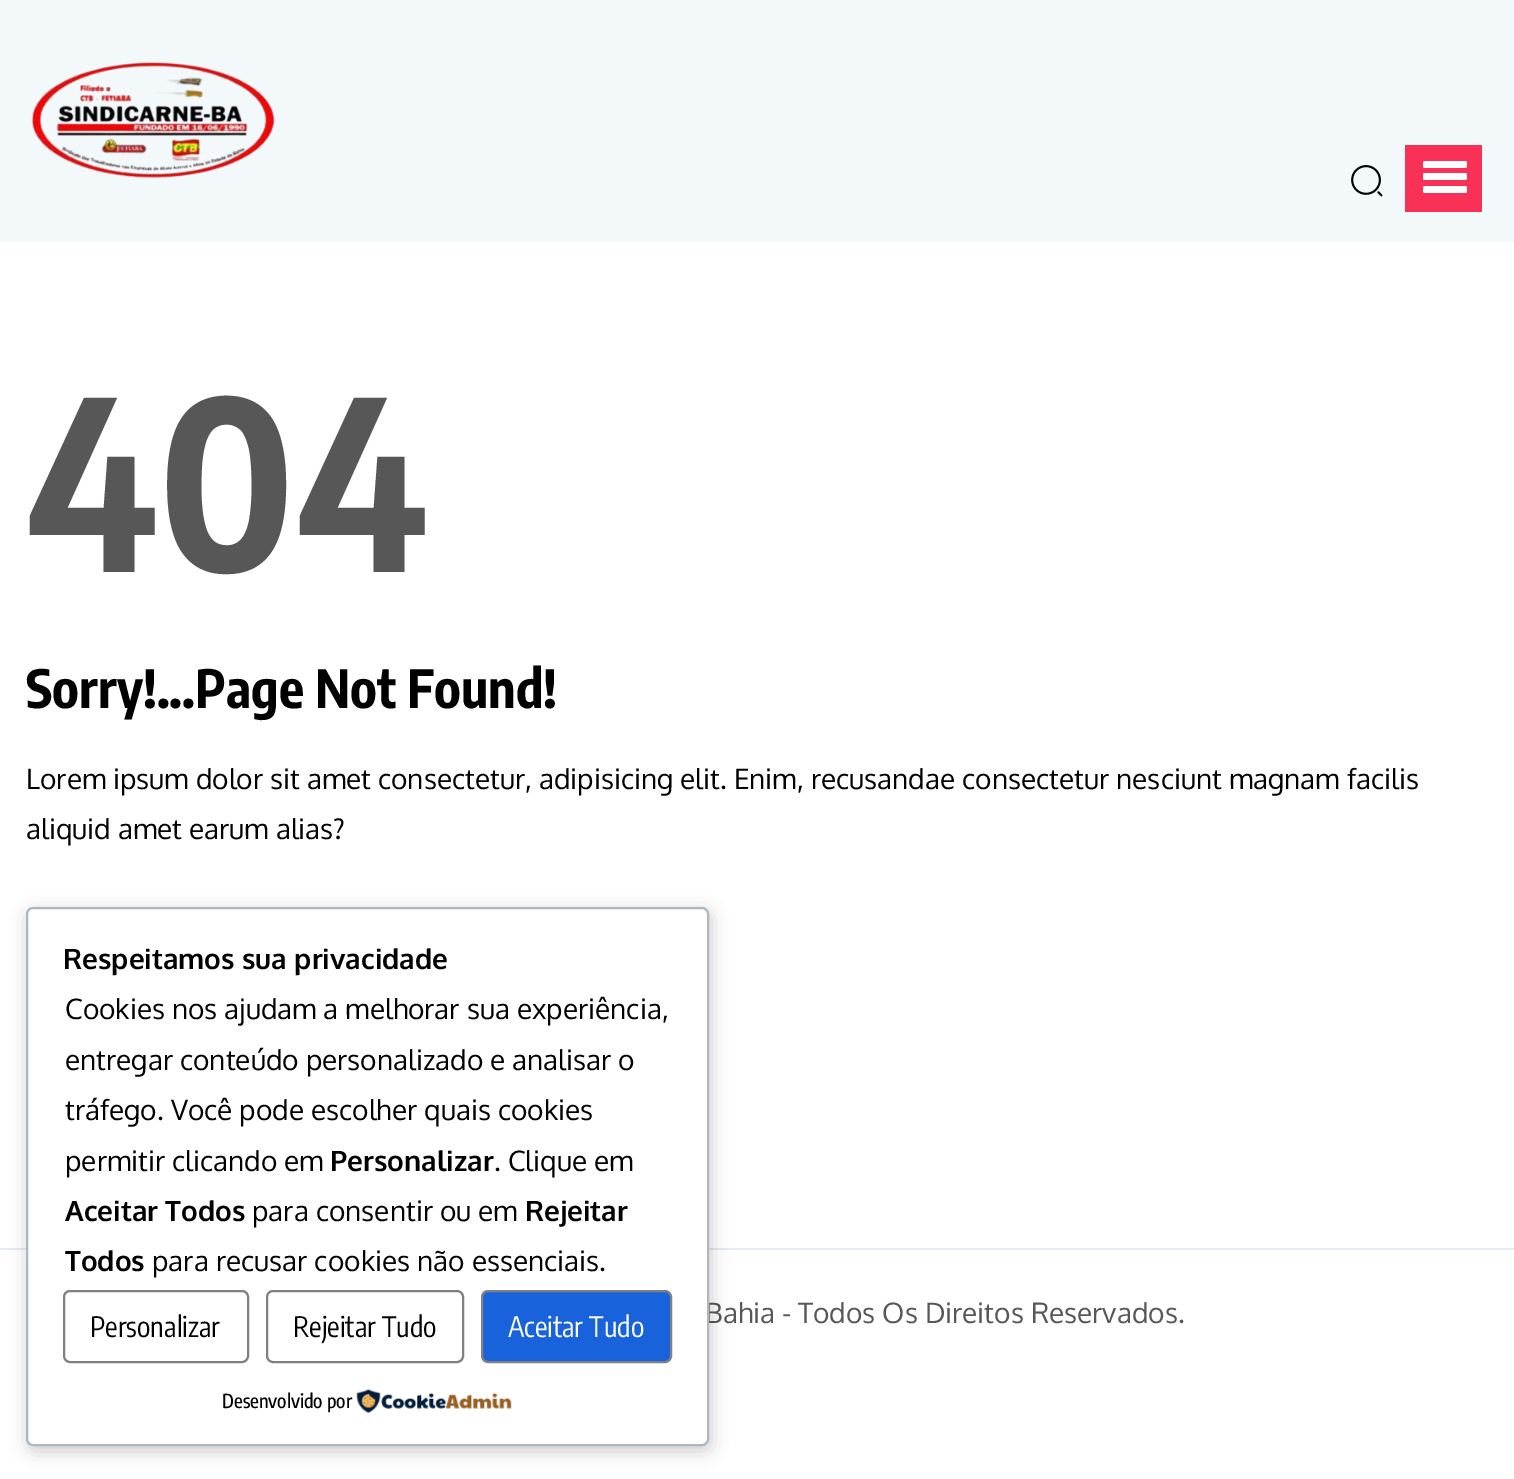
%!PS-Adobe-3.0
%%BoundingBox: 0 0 1514 1479
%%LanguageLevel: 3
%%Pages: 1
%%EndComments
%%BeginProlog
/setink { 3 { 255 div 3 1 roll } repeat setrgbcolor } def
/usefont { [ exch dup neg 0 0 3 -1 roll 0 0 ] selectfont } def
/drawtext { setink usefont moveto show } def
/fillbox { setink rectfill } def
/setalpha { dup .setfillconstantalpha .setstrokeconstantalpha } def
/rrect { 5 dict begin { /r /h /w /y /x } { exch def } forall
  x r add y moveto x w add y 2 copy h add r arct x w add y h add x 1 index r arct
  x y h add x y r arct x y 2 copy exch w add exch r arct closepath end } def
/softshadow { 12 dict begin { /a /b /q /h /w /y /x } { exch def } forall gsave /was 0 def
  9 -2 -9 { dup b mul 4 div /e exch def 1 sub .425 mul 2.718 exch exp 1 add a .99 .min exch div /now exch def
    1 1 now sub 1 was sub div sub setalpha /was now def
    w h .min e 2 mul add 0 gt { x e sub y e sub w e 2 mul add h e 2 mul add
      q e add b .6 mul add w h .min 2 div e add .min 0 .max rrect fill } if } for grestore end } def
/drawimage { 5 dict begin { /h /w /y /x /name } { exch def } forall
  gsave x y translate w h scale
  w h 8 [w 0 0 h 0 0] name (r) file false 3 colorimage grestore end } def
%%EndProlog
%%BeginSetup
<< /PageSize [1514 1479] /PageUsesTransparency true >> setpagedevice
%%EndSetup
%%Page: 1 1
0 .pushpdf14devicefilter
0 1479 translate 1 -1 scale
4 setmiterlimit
0 0 1514 1479 255 255 255 fillbox
0 0 1514 242 243 248 251 fillbox
(assets/img1.rgb) 31 62 244 116 drawimage
(assets/img2.rgb) 1351 165 32 32 drawimage
1405 145 77 67 249 49 86 fillbox
255 255 255 setink
1423 161 44 7 2 rrect fill
1423 173 44 7 2 rrect fill
1423 186 44 7 2 rrect fill
(404) 26 572 /EncodeSansCondensed-Bold 236 87 87 88 drawtext
(Sorry!...Page Not Found!) 26 708 /EncodeSansCondensed-Bold 52.5 0 0 0 drawtext
(Lorem ipsum dolor sit amet consectetur, adipisicing elit. Enim, recusandae consectetur nesciunt magnam facilis) 26 789 /Oxygen-Regular 28 0 0 0 drawtext
(aliquid amet earum alias?) 26 839 /Oxygen-Regular 28 0 0 0 drawtext
0 1248 1514 2 229 233 242 fillbox
(Bahia - Todos Os Direitos Reservados.) 705 1323 /Oxygen-Regular 28 87 87 88 drawtext
0 0 0 setink
28 912 683 539 7 9 0.2 softshadow
255 255 255 setink
27 908 681 537 6 rrect gsave fill grestore
171 184 195 setink
2 setlinewidth
stroke
(Respeitamos sua privacidade) 63 969 /Oxygen-Bold 28 0 0 0 drawtext
(Cookies nos ajudam a melhorar sua experiência,) 65 1019 /Oxygen-Regular 28 0 0 0 drawtext
(entregar conteúdo personalizado e analisar o) 65 1070 /Oxygen-Regular 28 0 0 0 drawtext
(tráfego. Você pode escolher quais cookies) 65 1120 /Oxygen-Regular 28 0 0 0 drawtext
(permitir clicando em) 65 1171 /Oxygen-Regular 28 0 0 0 drawtext
(Personalizar) 330 1171 /Oxygen-Bold 28 0 0 0 drawtext
(. Clique em) 494 1171 /Oxygen-Regular 28 0 0 0 drawtext
(Aceitar Todos) 65 1221 /Oxygen-Bold 28 0 0 0 drawtext
(para consentir ou em) 252 1221 /Oxygen-Regular 28 0 0 0 drawtext
(Rejeitar) 525 1221 /Oxygen-Bold 28 0 0 0 drawtext
(Todos) 65 1271 /Oxygen-Bold 28 0 0 0 drawtext
(para recusar cookies não essenciais.) 152 1271 /Oxygen-Regular 28 0 0 0 drawtext
128 128 128 setink
64 1291 184 71 6 rrect stroke
(Personalizar) 90 1337 /EncodeSansCondensed-Regular 28 0 0 0 drawtext
128 128 128 setink
267 1291 196 71 6 rrect stroke
(Rejeitar Tudo) 293 1337 /EncodeSansCondensed-Regular 28 0 0 0 drawtext
24 99 220 setink
482 1291 189 71 6 rrect gsave fill grestore
128 128 128 setink
stroke
(Aceitar Tudo) 508 1337 /EncodeSansCondensed-Regular 28 255 255 255 drawtext
(Desenvolvido por) 222 1408 /EncodeSansCondensed-Medium 19.25 0 0 0 drawtext
(assets/img3.rgb) 356 1389 156 24 drawimage
.poppdf14devicefilter showpage
%%EOF
